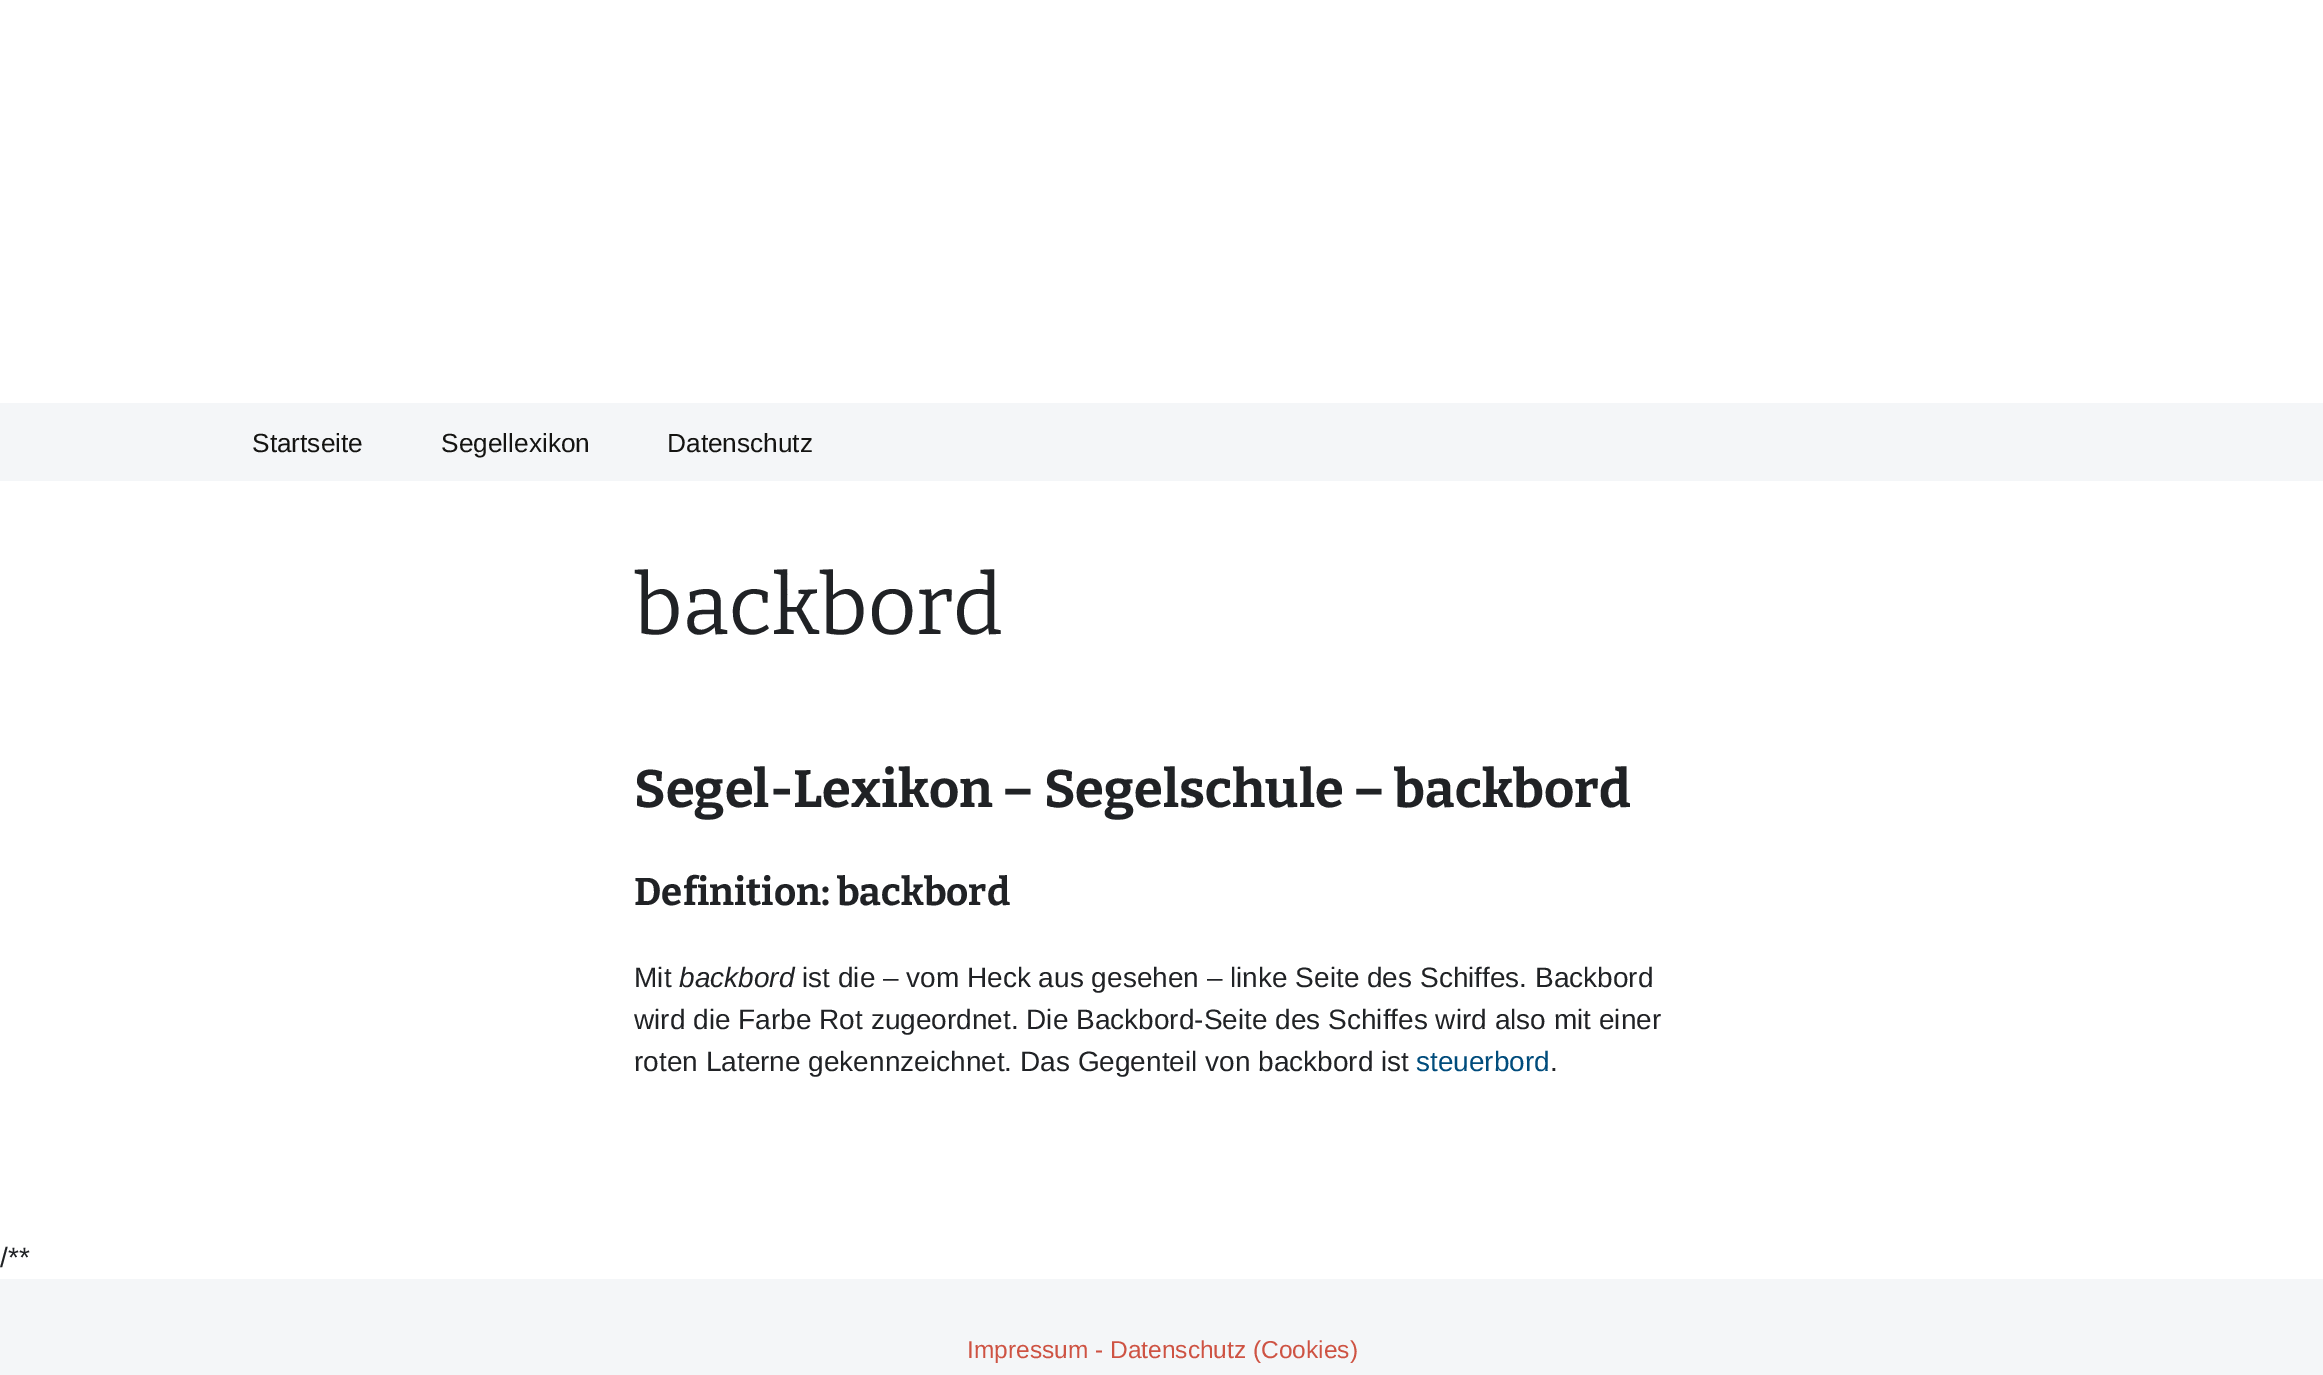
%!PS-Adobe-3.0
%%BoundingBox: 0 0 2323 1375
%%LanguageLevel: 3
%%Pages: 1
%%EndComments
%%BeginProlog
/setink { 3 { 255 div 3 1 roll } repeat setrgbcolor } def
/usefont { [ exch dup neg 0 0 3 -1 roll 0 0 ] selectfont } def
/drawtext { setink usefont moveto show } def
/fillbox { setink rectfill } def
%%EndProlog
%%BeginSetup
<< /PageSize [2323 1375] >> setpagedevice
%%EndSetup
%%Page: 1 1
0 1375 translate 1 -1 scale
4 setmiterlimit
0 0 2323 1375 255 255 255 fillbox
0 403 2323 78 244 246 248 fillbox
(Startseite) 252 452 /LiberationSans-Regular 26.25 20 20 18 drawtext
(Segellexikon) 441 452 /LiberationSans-Regular 26.25 20 20 18 drawtext
(Datenschutz) 667 452 /LiberationSans-Regular 26.25 20 20 18 drawtext
(backbord) 634 634 /Bitter-Regular 84 32 34 37 drawtext
(Segel-Lexikon – Segelschule – backbord) 634 807 /Bitter-Bold 52.5 32 34 37 drawtext
(Definition: backbord) 634 905 /Bitter-Bold 38.5 32 34 37 drawtext
(Mit) 634 987 /LiberationSans-Regular 28 32 34 37 drawtext
(backbord) 679 987 /LiberationSans-Italic 28 32 34 37 drawtext
(ist die – vom Heck aus gesehen – linke Seite des Schiffes. Backbord) 802 987 /LiberationSans-Regular 28 32 34 37 drawtext
(wird die Farbe Rot zugeordnet. Die Backbord-Seite des Schiffes wird also mit einer) 634 1029 /LiberationSans-Regular 28 32 34 37 drawtext
(roten Laterne gekennzeichnet. Das Gegenteil von backbord ist) 634 1071 /LiberationSans-Regular 28 32 34 37 drawtext
(steuerbord) 1416 1071 /LiberationSans-Regular 28 0 76 124 drawtext
(.) 1550 1071 /LiberationSans-Regular 28 32 34 37 drawtext
(/**) 0 1267 /LiberationSans-Regular 28 32 34 37 drawtext
0 1279 2323 96 244 246 248 fillbox
(Impressum - Datenschutz \(Cookies\)) 967 1358 /LiberationSans-Regular 24.5 206 83 67 drawtext
showpage
%%EOF
